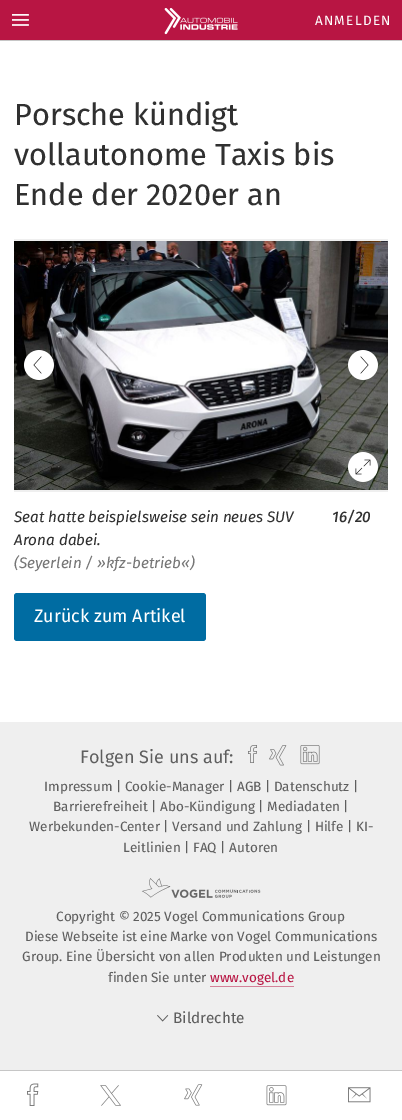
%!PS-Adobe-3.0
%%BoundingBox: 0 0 402 1120
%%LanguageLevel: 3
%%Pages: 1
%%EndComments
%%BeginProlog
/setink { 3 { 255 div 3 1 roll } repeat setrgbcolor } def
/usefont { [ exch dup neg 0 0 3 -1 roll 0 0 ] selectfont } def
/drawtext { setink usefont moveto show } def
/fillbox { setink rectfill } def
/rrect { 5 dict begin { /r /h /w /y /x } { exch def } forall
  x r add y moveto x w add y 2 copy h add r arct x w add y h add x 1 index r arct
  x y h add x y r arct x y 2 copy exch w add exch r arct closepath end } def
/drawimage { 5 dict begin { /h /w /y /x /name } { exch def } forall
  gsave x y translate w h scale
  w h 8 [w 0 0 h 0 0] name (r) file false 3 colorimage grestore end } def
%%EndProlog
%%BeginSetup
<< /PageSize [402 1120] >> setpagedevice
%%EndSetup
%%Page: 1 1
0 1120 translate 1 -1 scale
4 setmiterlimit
0 0 402 1120 239 239 239 fillbox
0 41 402 681 255 255 255 fillbox
0 40 402 1 198 198 198 fillbox
0 0 402 40 184 21 67 fillbox
(assets/img1.rgb) 12 14 17 12 drawimage
(assets/img2.rgb) 164 8 74 27 drawimage
/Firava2-Regular 13.5 usefont
255 255 255 setink
315 25 moveto 1.25 0 (ANMELDEN) ashow
(Porsche kündigt) 14 125 /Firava-Regular 30.6 48 48 48 drawtext
(vollautonome Taxis bis) 14 165 /Firava-Regular 30.6 48 48 48 drawtext
(Ende der 2020er an) 14 205 /Firava-Regular 30.6 48 48 48 drawtext
14 239 374 253 239 239 239 fillbox
(assets/img3.rgb) 14 241 374 249 drawimage
(assets/img4.rgb) 24 350 30 30 drawimage
(assets/img5.rgb) 348 350 30 30 drawimage
(assets/img6.rgb) 348 452 30 30 drawimage
(Seat hatte beispielsweise sein neues SUV) 14 522 /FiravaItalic-Italic 15.25 48 48 48 drawtext
(Arona dabei.) 14 545 /FiravaItalic-Italic 15.25 48 48 48 drawtext
(\(Seyerlein / »kfz-betrieb«\)) 14 568 /FiravaItalic-Italic 15.25 118 118 118 drawtext
(16/20) 332 522 /FiravaItalic-MediumItalic 15.25 48 48 48 drawtext
0 108 162 setink
14 593 192 48 3 rrect fill
(Zurück zum Artikel) 34 622 /Firava-Regular 18 255 255 255 drawtext
0 1071 402 49 255 255 255 fillbox
0 1070 402 1 198 198 198 fillbox
(assets/img7.rgb) 27 1083 12 23 drawimage
(assets/img8.rgb) 100 1085 21 21 drawimage
(assets/img9.rgb) 184 1084 19 22 drawimage
(assets/img10.rgb) 266 1085 21 21 drawimage
(assets/img11.rgb) 348 1087 23 16 drawimage
(Folgen Sie uns auf:) 80 763 /Firava2-Regular 18 94 94 94 drawtext
(assets/img12.rgb) 248 745 9 18 drawimage
(assets/img13.rgb) 269 745 18 21 drawimage
(assets/img14.rgb) 300 745 20 20 drawimage
(Impressum | Cookie-Manager | AGB | Datenschutz |) 44 791 /Firava-Regular 13.5 94 94 94 drawtext
(Barrierefreiheit | Abo-Kündigung | Mediadaten |) 53 811 /Firava-Regular 13.5 94 94 94 drawtext
(Werbekunden-Center | Versand und Zahlung | Hilfe | KI-) 29 831 /Firava-Regular 13.5 94 94 94 drawtext
(Leitlinien | FAQ | Autoren) 123 852 /Firava-Regular 13.5 94 94 94 drawtext
(assets/img15.rgb) 141 878 120 20 drawimage
(Copyright © 2025 Vogel Communications Group) 56 921 /Firava-Regular 13.5 94 94 94 drawtext
(Diese Webseite ist eine Marke von Vogel Communications) 25 941 /Firava-Regular 13.5 94 94 94 drawtext
(Group. Eine Übersicht von allen Produkten und Leistungen) 22 961 /Firava-Regular 13.5 94 94 94 drawtext
(finden Sie unter) 108 982 /Firava-Regular 13.5 94 94 94 drawtext
(www.vogel.de) 210 982 /Firava-Regular 13.5 184 21 67 drawtext
210 986 84 1 212 130 153 fillbox
(assets/img16.rgb) 157 1015 12 7 drawimage
(Bildrechte) 173 1023 /Firava-Regular 15.25 94 94 94 drawtext
showpage
%%EOF
